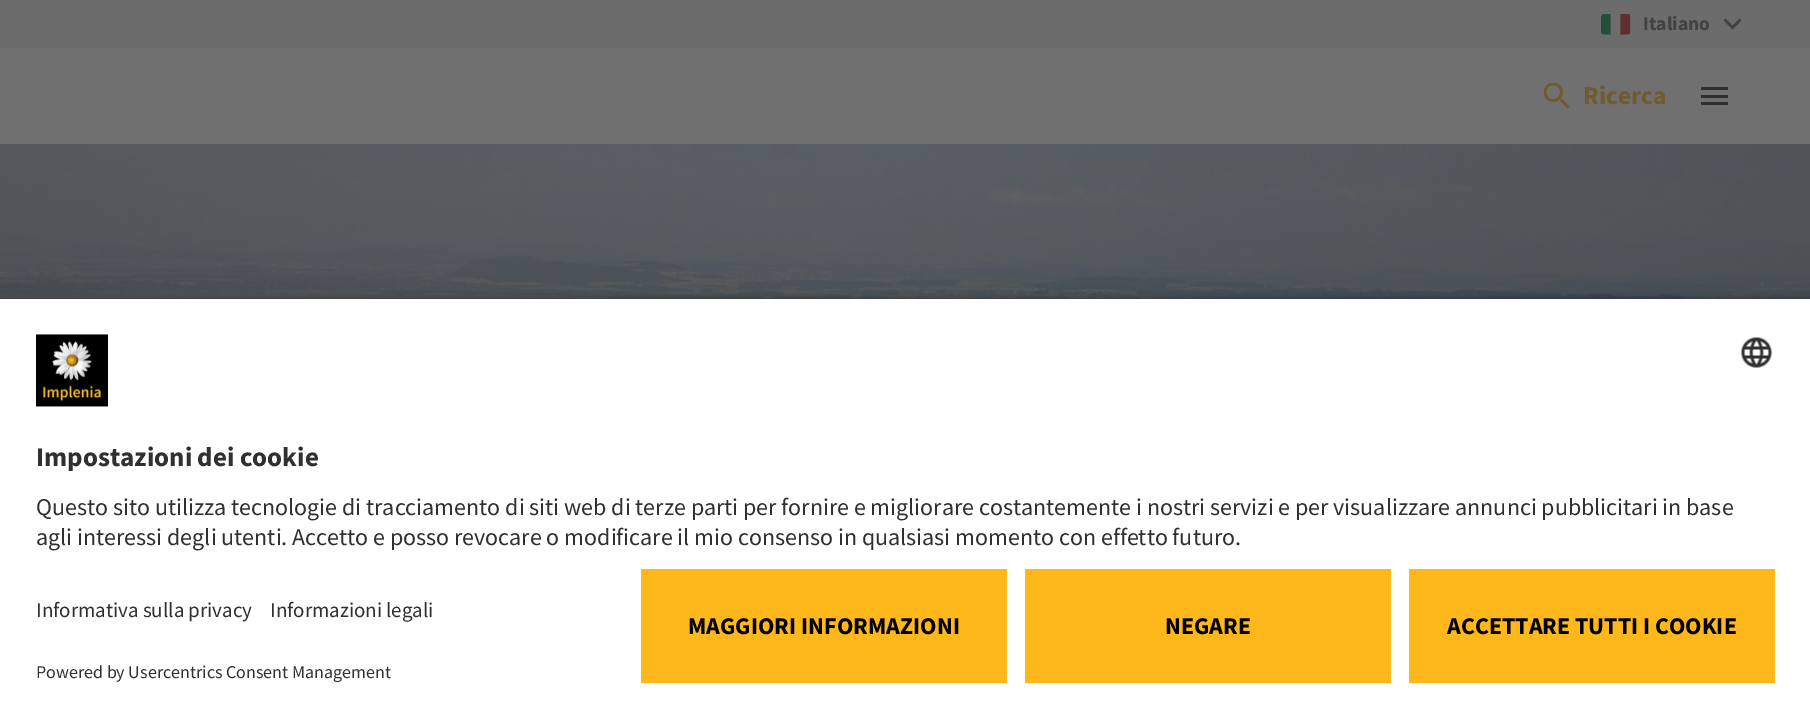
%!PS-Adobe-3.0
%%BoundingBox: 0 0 1810 718
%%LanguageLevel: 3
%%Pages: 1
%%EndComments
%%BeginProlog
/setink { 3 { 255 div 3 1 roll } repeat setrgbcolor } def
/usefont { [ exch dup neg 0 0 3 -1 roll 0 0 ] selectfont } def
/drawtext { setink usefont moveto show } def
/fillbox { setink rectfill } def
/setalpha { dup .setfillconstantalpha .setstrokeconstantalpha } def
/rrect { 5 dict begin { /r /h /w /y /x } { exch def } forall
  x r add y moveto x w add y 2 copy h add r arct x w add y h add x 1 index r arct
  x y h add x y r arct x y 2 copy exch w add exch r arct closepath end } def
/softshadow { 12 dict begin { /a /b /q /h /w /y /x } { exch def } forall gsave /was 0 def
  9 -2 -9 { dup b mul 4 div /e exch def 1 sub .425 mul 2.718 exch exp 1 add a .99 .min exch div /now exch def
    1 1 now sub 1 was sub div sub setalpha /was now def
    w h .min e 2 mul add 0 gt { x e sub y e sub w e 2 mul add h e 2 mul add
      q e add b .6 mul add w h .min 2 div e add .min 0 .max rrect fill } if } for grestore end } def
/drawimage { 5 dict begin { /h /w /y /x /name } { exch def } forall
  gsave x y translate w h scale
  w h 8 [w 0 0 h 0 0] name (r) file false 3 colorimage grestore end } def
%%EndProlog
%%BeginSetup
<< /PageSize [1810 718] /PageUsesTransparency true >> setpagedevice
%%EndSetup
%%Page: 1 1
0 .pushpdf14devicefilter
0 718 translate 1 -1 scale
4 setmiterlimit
0 0 1810 718 112 112 112 fillbox
0 0 1810 48 108 108 108 fillbox
(assets/img1.rgb) 1601 14 30 21 drawimage
(Italiano) 1643 30 /SourceSansPro-Bold 19.5 66 66 66 drawtext
1725.5 18.5 moveto 1732.5 25.5 lineto 1739.5 18.5 lineto 1741.5 20.5 lineto 1732.5 29.5 lineto 1723.5 20.5 lineto closepath fill
(assets/img2.rgb) 1544 83 26 26 drawimage
(Ricerca) 1583 104 /SourceSansPro-Bold 25.5 112 91 44 drawtext
1701 87 27 3 46 46 46 fillbox
1701 95 27 3 46 46 46 fillbox
1701 102 27 3 46 46 46 fillbox
(assets/img3.rgb) 0 144 1810 155 drawimage
0 0 0 setink
0 302 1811 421 0 5 0.8 softshadow
0 299 1810 419 255 255 255 fillbox
(assets/img4.rgb) 36 334 72 73 drawimage
(assets/img5.rgb) 1741 337 31 31 drawimage
(Impostazioni dei cookie) 36 466 /SourceSansPro-Bold 27 48 48 48 drawtext
(Questo sito utilizza tecnologie di tracciamento di siti web di terze parti per fornire e migliorare costantemente i nostri servizi e per visualizzare annunci pubblicitari in base) 36 515 /SourceSansPro-Regular 24 48 48 48 drawtext
(agli interessi degli utenti. Accetto e posso revocare o modificare il mio consenso in qualsiasi momento con effetto futuro.) 36 545 /SourceSansPro-Regular 24 48 48 48 drawtext
(Informativa sulla privacy) 36 617 /SourceSansPro-Regular 21 48 48 48 drawtext
(Informazioni legali) 270 617 /SourceSansPro-Regular 21 48 48 48 drawtext
(Powered by Usercentrics Consent Management) 36 678 /SourceSansPro-Regular 18 48 48 48 drawtext
641 569 366 114 255 184 28 fillbox
(MAGGIORI INFORMAZIONI) 688 634 /SourceSansPro-Bold 24 0 0 0 drawtext
1025 569 366 114 255 184 28 fillbox
(NEGARE) 1165 634 /SourceSansPro-Bold 24 0 0 0 drawtext
1409 569 366 114 255 184 28 fillbox
(ACCETTARE TUTTI I COOKIE) 1447 634 /SourceSansPro-Bold 24 0 0 0 drawtext
.poppdf14devicefilter showpage
%%EOF
